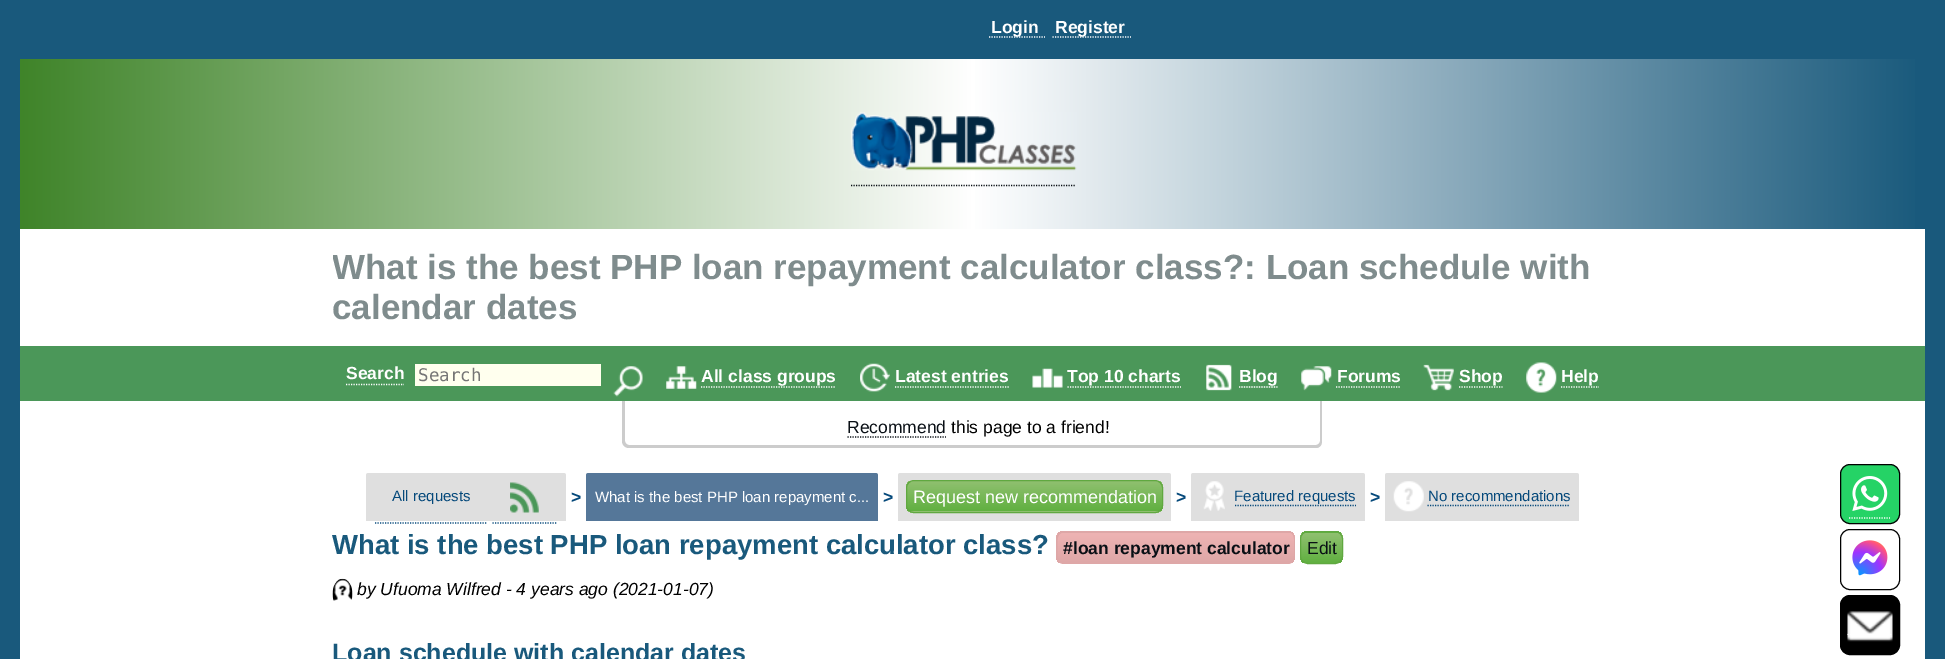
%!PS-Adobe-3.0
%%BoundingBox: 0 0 1945 659
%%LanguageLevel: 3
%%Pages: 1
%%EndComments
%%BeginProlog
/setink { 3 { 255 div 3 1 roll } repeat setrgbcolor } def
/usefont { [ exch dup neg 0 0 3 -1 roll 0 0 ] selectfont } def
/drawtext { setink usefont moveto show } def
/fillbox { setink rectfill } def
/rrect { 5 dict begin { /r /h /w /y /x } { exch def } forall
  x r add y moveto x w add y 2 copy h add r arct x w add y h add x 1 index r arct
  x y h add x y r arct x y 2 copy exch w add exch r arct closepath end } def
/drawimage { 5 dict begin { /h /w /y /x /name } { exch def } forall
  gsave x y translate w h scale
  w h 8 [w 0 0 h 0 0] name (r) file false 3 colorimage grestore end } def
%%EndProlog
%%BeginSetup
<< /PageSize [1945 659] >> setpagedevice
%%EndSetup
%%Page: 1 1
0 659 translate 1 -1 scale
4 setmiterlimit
0 0 1945 659 25 89 124 fillbox
20 229 1905 430 255 255 255 fillbox
1.2 setlinewidth
[1.25 1.25] 0 setdash
989 37 moveto 1045 37 lineto stroke
(Login) 991 33 /LiberationSans-Bold 17.5 255 255 255 drawtext
1052.5 37 moveto 1131 37 lineto stroke
(Register) 1055 33 /LiberationSans-Bold 17.5 255 255 255 drawtext
gsave 20 59 moveto 1915 59 lineto 1915 229 lineto 20 229 lineto closepath clip newpath
<< /ShadingType 2 /ColorSpace /DeviceRGB /Coords [20 144 1925 144] /Extend [true true] /Function << /FunctionType 3 /Domain [0 1] /Functions [<< /FunctionType 2 /Domain [0 1] /C0 [0.247 0.518 0.161] /C1 [1 1 1] /N 1 >> << /FunctionType 2 /Domain [0 1] /C0 [1 1 1] /C1 [0.098 0.349 0.486] /N 1 >>] /Bounds [0.5] /Encode [0 1 0 1] >> >> shfill grestore
(assets/img1.rgb) 851 112 226 59 drawimage
9 15 21 setink
851 185.5 moveto 1076 185.5 lineto stroke
gsave
333 248 1281 80 rectclip
(What is the best PHP loan repayment calculator class?: Loan schedule with) 332 279 /LiberationSans-Bold 35 127 140 141 drawtext
grestore
(calendar dates) 332 319 /LiberationSans-Bold 35 127 140 141 drawtext
20 346 1905 55 75 151 89 fillbox
(Search) 346 379 /LiberationSans-Bold 17.5 255 255 255 drawtext
346 384.5 moveto 404 384.5 lineto stroke
415 364 186 22 255 255 238 fillbox
(Search) 418 381 /DejaVuSansMono-Regular 17.5 117 117 117 drawtext
(assets/img2.rgb) 613 366 30 31 drawimage
(assets/img3.rgb) 666 366 31 23 drawimage
(All class groups) 701 382 /LiberationSans-Bold 17.5 255 255 255 drawtext
701 387 moveto 836 387 lineto stroke
(assets/img4.rgb) 860 363 30 29 drawimage
(Latest entries) 895 382 /LiberationSans-Bold 17.5 255 255 255 drawtext
895 387 moveto 1009 387 lineto stroke
(assets/img5.rgb) 1032 368 31 20 drawimage
(Top 10 charts) 1067 382 /LiberationSans-Bold 17.5 255 255 255 drawtext
1067.5 387 moveto 1181 387 lineto stroke
(assets/img6.rgb) 1206 364 26 27 drawimage
(Blog) 1239 382 /LiberationSans-Bold 17.5 255 255 255 drawtext
1239 387 moveto 1277.5 387 lineto stroke
(assets/img7.rgb) 1301 366 31 25 drawimage
(Forums) 1337 382 /LiberationSans-Bold 17.5 255 255 255 drawtext
1336 387 moveto 1401 387 lineto stroke
(assets/img8.rgb) 1423 364 31 27 drawimage
(Shop) 1459 382 /LiberationSans-Bold 17.5 255 255 255 drawtext
1459 387 moveto 1502.5 387 lineto stroke
(assets/img9.rgb) 1526 362 31 31 drawimage
(Help) 1561 382 /LiberationSans-Bold 17.5 255 255 255 drawtext
1561 387 moveto 1599 387 lineto stroke
204 204 204 setink
622 401 moveto 1322 401 lineto 1322 441 lineto 1322 445 1320 448 1316 448 curveto 629 448 lineto 625 448 622 445 622 441 curveto closepath 625 401 moveto 1320 401 lineto 1320 441 lineto 1320 443 1318 445 1316 445 curveto 629 445 lineto 627 445 625 443 625 441 curveto closepath eofill
(Recommend) 847 433 /LiberationSans-Regular 17.5 9 15 21 drawtext
847.5 437 moveto 946 437 lineto stroke
(this page to a friend!) 951 433 /LiberationSans-Regular 17.5 0 0 0 drawtext
223 223 223 setink
368.5 473 moveto 563.5 473 lineto 565 473 566 474 566 475.5 curveto 566 521 lineto 366 521 lineto 366 475.5 lineto 366 474 367 473 368.5 473 curveto closepath fill
(All requests) 392 501 /LiberationSans-Regular 15 5 73 123 drawtext
375 523 moveto 487.5 523 lineto stroke
(assets/img10.rgb) 510 482 29 31 drawimage
492.5 523 moveto 557.5 523 lineto stroke
(>) 571 503 /LiberationSans-Bold 17.5 5 73 123 drawtext
85 119 153 setink
588.5 473 moveto 875.5 473 lineto 877 473 878 474 878 475.5 curveto 878 521 lineto 586 521 lineto 586 475.5 lineto 586 474 587 473 588.5 473 curveto closepath fill
(What is the best PHP loan repayment c...) 595 502 /LiberationSans-Regular 15 255 255 255 drawtext
(>) 883 503 /LiberationSans-Bold 17.5 5 73 123 drawtext
223 223 223 setink
900.5 473 moveto 1168.5 473 lineto 1170 473 1171 474 1171 475.5 curveto 1171 521 lineto 898 521 lineto 898 475.5 lineto 898 474 899 473 900.5 473 curveto closepath fill
gsave
906 480 257 33 8 rrect clip newpath
gsave 906 481 moveto 1163 481 lineto 1163 511 lineto 906 511 lineto closepath clip newpath
<< /ShadingType 2 /ColorSpace /DeviceRGB /Coords [1034 481 1034 511] /Extend [true true] /Function << /FunctionType 2 /Domain [0 1] /C0 [0.565 0.753 0.439] /C1 [0.376 0.69 0.251] /N 1 >> >> shfill grestore
gsave 906 511 moveto 1163 511 lineto 1163 513 lineto 906 513 lineto closepath clip newpath
<< /ShadingType 2 /ColorSpace /DeviceRGB /Coords [1034 511 1034 541] /Extend [true true] /Function << /FunctionType 2 /Domain [0 1] /C0 [0.565 0.753 0.439] /C1 [0.376 0.69 0.251] /N 1 >> >> shfill grestore
grestore
96 168 64 setink
1 setlinewidth
[] 0 setdash
906.5 480.5 256 32 7.5 rrect stroke
(Request new recommendation) 913 503 /LiberationSans-Regular 18 255 255 255 drawtext
(>) 1176 503 /LiberationSans-Bold 17.5 5 73 123 drawtext
223 223 223 setink
1193.5 473 moveto 1362.5 473 lineto 1364 473 1365 474 1365 475.5 curveto 1365 521 lineto 1191 521 lineto 1191 475.5 lineto 1191 474 1192 473 1193.5 473 curveto closepath fill
(assets/img11.rgb) 1203 481 22 30 drawimage
5 73 123 setink
1.2 setlinewidth
[1.25 1.25] 0 setdash
1235 505.5 moveto 1356 505.5 lineto stroke
(Featured requests) 1234 501 /LiberationSans-Regular 15 5 73 123 drawtext
(>) 1370 503 /LiberationSans-Bold 17.5 5 73 123 drawtext
223 223 223 setink
1387.5 473 moveto 1576.5 473 lineto 1578 473 1579 474 1579 475.5 curveto 1579 521 lineto 1385 521 lineto 1385 475.5 lineto 1385 474 1386 473 1387.5 473 curveto closepath fill
(assets/img12.rgb) 1393 481 31 31 drawimage
(No recommendations) 1428 501 /LiberationSans-Regular 15 5 73 123 drawtext
1427.5 505.5 moveto 1570 505.5 lineto stroke
(What is the best PHP loan repayment calculator class?) 332 554 /LiberationSans-Bold 27.5 25 89 124 drawtext
gsave
1064 531 moveto 1073 531 lineto 1073 564 lineto 1064 564 lineto 1059.5 564 1056 560.5 1056 556 curveto 1056 539 lineto 1056 534.5 1059.5 531 1064 531 curveto closepath clip newpath
gsave 1056 533 moveto 1073 533 lineto 1073 563 lineto 1056 563 lineto closepath clip newpath
<< /ShadingType 2 /ColorSpace /DeviceRGB /Coords [1065 533 1065 563] /Extend [true true] /Function << /FunctionType 2 /Domain [0 1] /C0 [0.933 0.702 0.702] /C1 [0.871 0.655 0.655] /N 1 >> >> shfill grestore
gsave 1056 531 moveto 1073 531 lineto 1073 533 lineto 1056 533 lineto closepath clip newpath
<< /ShadingType 2 /ColorSpace /DeviceRGB /Coords [1065 503 1065 533] /Extend [true true] /Function << /FunctionType 2 /Domain [0 1] /C0 [0.933 0.702 0.702] /C1 [0.871 0.655 0.655] /N 1 >> >> shfill grestore
grestore
222 167 167 setink
1064 531 moveto 1072.5 531 lineto 1072.5 564 lineto 1064 564 lineto 1059.5 564 1056 560.5 1056 556 curveto 1056 539 lineto 1056 534.5 1059.5 531 1064 531 curveto closepath 1064 532.5 moveto 1072.5 532.5 lineto 1072.5 562.5 lineto 1067.5 562.5 1059 564 1057.5 557.5 curveto 1057.5 547.5 lineto 1057.5 542.5 1056 532.5 1064 532.5 curveto closepath eofill
gsave
1073 531 moveto 1287 531 lineto 1291.5 531 1295 534.5 1295 539 curveto 1295 556 lineto 1295 560.5 1291.5 564 1287 564 curveto 1073 564 lineto closepath clip newpath
gsave 1073 533 moveto 1295 533 lineto 1295 563 lineto 1073 563 lineto closepath clip newpath
<< /ShadingType 2 /ColorSpace /DeviceRGB /Coords [1183 533 1183 563] /Extend [true true] /Function << /FunctionType 2 /Domain [0 1] /C0 [0.933 0.702 0.702] /C1 [0.871 0.655 0.655] /N 1 >> >> shfill grestore
gsave 1073 531 moveto 1295 531 lineto 1295 533 lineto 1073 533 lineto closepath clip newpath
<< /ShadingType 2 /ColorSpace /DeviceRGB /Coords [1183 503 1183 533] /Extend [true true] /Function << /FunctionType 2 /Domain [0 1] /C0 [0.933 0.702 0.702] /C1 [0.871 0.655 0.655] /N 1 >> >> shfill grestore
grestore
1072 531 moveto 1288 531 lineto 1292 531 1295 535 1295 539 curveto 1295 556 lineto 1295 560 1292 564 1288 564 curveto 1072 564 lineto closepath 1072 532 moveto 1288 532 lineto 1291 532 1294 535 1294 539 curveto 1294 556 lineto 1294 560 1291 562 1288 562 curveto 1072 562 lineto closepath eofill
(#loan repayment calculator) 1063 554 /LiberationSans-Bold 17.5 9 15 21 drawtext
gsave
1300 531 43 33 8 rrect clip newpath
gsave 1300 533 moveto 1343 533 lineto 1343 563 lineto 1300 563 lineto closepath clip newpath
<< /ShadingType 2 /ColorSpace /DeviceRGB /Coords [1321 533 1321 563] /Extend [true true] /Function << /FunctionType 2 /Domain [0 1] /C0 [0.565 0.753 0.439] /C1 [0.376 0.69 0.251] /N 1 >> >> shfill grestore
gsave 1300 531 moveto 1343 531 lineto 1343 533 lineto 1300 533 lineto closepath clip newpath
<< /ShadingType 2 /ColorSpace /DeviceRGB /Coords [1321 503 1321 533] /Extend [true true] /Function << /FunctionType 2 /Domain [0 1] /C0 [0.565 0.753 0.439] /C1 [0.376 0.69 0.251] /N 1 >> >> shfill grestore
grestore
96 168 64 setink
1 setlinewidth
[] 0 setdash
1300.5 531.5 42 32 7.5 rrect stroke
(Edit) 1307 554 /LiberationSans-Regular 17.5 9 15 21 drawtext
(assets/img13.rgb) 332 578 21 23 drawimage
(by Ufuoma Wilfred - 4 years ago \(2021-01-07\)) 357 595 /LiberationSans-Italic 17.5 0 0 0 drawtext
(Loan schedule with calendar dates) 332 661 /LiberationSans-Bold 25 25 89 124 drawtext
37 211 102 setink
1840.5 464.5 59 59 9.5 rrect gsave fill grestore
0 0 0 setink
stroke
(assets/img14.rgb) 1852 476 36 35 drawimage
255 255 255 setink
1.2 setlinewidth
[1.25 1.25] 0 setdash
1849 518 moveto 1890 518 lineto stroke
0 0 0 setink
1 setlinewidth
[] 0 setdash
1840.5 529.5 59 60 9.5 rrect stroke
(assets/img15.rgb) 1852 540 36 36 drawimage
1840.5 595.5 59 59 9.5 rrect gsave fill grestore
stroke
255 255 255 setink
1.2 setlinewidth
[1.25 1.25] 0 setdash
1847.5 634.5 moveto 1892.5 634.5 lineto stroke
(assets/img16.rgb) 1847 611 46 31 drawimage
showpage
%%EOF
